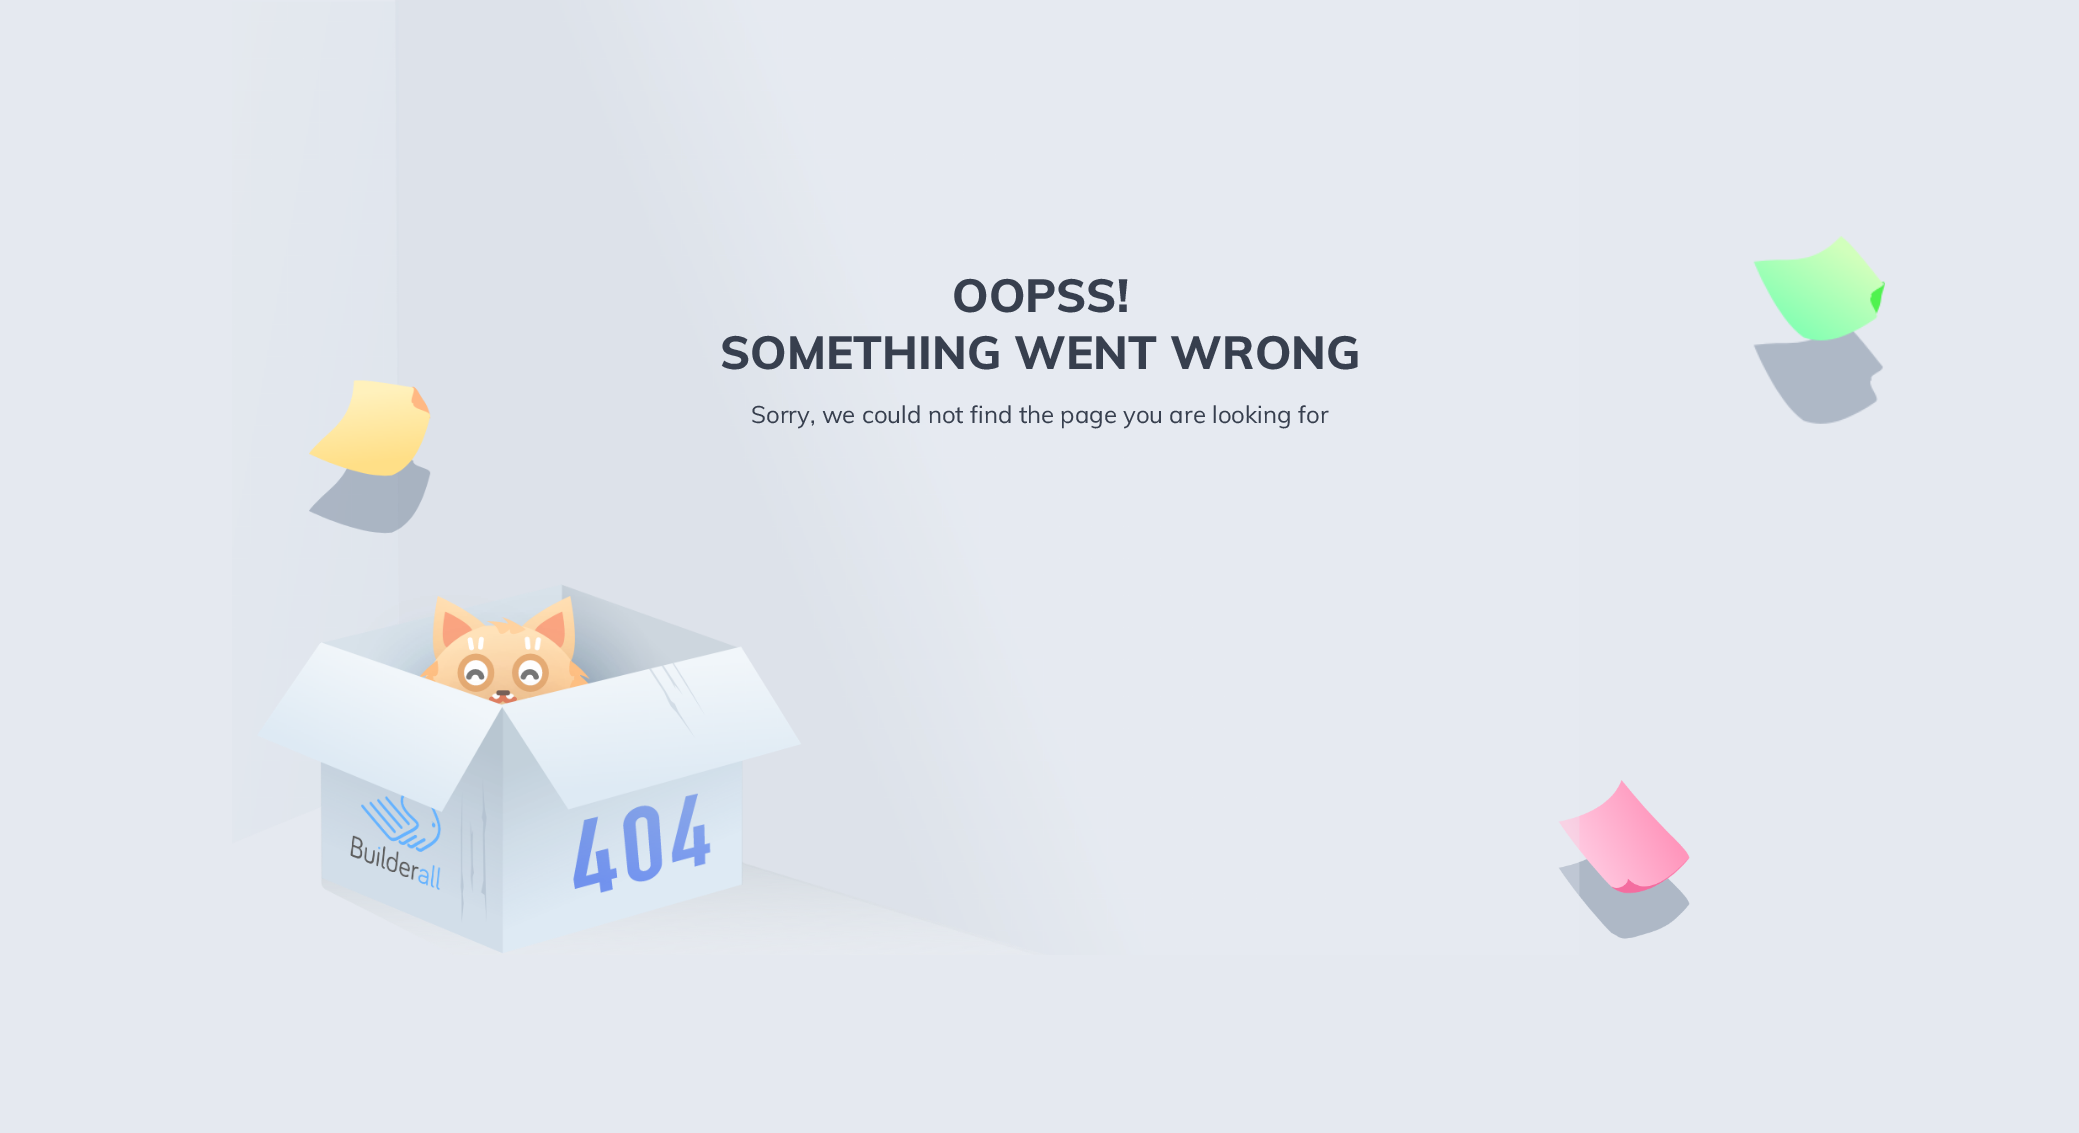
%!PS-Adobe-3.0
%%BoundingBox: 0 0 2079 1133
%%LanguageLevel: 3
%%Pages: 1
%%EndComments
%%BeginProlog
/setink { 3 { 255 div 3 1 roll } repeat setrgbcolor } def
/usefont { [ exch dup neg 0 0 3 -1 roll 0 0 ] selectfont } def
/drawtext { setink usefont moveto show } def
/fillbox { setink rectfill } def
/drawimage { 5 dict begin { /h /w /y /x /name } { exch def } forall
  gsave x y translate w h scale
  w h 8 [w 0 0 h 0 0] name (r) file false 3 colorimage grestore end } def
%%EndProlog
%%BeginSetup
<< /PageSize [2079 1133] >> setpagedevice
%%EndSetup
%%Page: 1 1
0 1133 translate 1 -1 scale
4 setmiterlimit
0 0 2079 1133 229 233 240 fillbox
(assets/img1.rgb) 232 0 1653 955 drawimage
(OOPSS!) 952 312 /Muli-ExtraBold 46 55 63 78 drawtext
(SOMETHING WENT WRONG) 720 369 /Muli-ExtraBold 46 55 63 78 drawtext
(Sorry, we could not find the page you are looking for) 751 423 /Muli-Regular 24 55 63 78 drawtext
showpage
%%EOF
